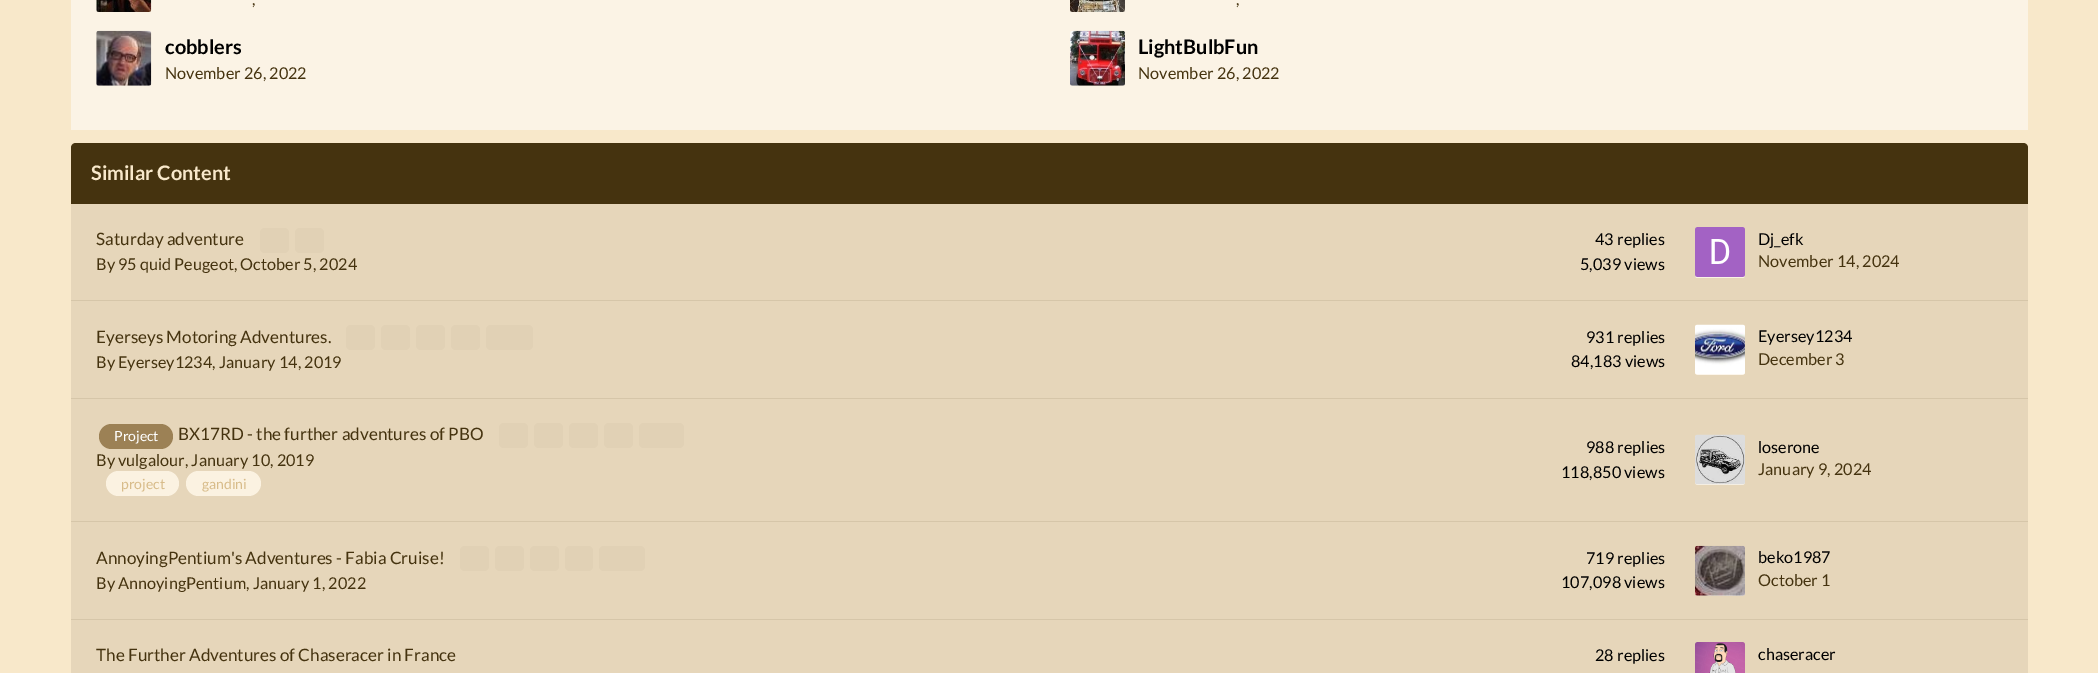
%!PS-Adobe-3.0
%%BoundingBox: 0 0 2098 673
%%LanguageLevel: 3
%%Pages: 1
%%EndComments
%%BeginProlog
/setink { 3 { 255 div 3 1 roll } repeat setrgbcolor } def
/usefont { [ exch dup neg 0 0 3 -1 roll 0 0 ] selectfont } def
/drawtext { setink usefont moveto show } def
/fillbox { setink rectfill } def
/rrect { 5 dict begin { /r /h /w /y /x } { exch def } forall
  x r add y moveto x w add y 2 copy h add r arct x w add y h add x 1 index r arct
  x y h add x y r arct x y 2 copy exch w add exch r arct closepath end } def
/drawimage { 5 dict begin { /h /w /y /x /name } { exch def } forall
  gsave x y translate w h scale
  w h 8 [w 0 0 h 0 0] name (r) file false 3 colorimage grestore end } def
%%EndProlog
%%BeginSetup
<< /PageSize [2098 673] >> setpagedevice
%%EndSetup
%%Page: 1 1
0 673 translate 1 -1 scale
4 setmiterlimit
0 0 2098 673 248 232 202 fillbox
71 0 1957 130 251 243 229 fillbox
(assets/img1.rgb) 96 0 56 12 drawimage
(,) 252 5 /Lato-Regular 16.25 69 51 15 drawtext
(assets/img2.rgb) 1070 0 55 12 drawimage
(,) 1236 5 /Lato-Regular 16.25 69 51 15 drawtext
(assets/img3.rgb) 96 30 56 56 drawimage
(cobblers) 165 54 /Lato-Bold 20 0 0 0 drawtext
(November 26, 2022) 165 79 /Lato-Regular 16.25 69 51 15 drawtext
(assets/img4.rgb) 1070 30 55 56 drawimage
(LightBulbFun) 1138 54 /Lato-Bold 20 0 0 0 drawtext
(November 26, 2022) 1138 79 /Lato-Regular 16.25 69 51 15 drawtext
76 143 moveto 2023 143 lineto 2026 143 2028 145 2028 148 curveto 2028 204 lineto 71 204 lineto 71 148 lineto 71 145 73 143 76 143 curveto closepath fill
(Similar Content) 91 180 /Lato-Bold 20 248 232 202 drawtext
71 204 1957 469 230 214 186 fillbox
71 300 1957 1 214 198 169 fillbox
(Saturday adventure) 96 245 /Lato-Regular 17.1 69 51 15 drawtext
225 209 181 setink
260 228 29 25 5 rrect fill
295 228 29 25 5 rrect fill
(By 95 quid Peugeot, October 5, 2024) 96 270 /Lato-Regular 16.25 69 51 15 drawtext
(43 replies) 1595 245 /Lato-Regular 16.25 0 0 0 drawtext
(5,039 views) 1580 270 /Lato-Regular 16.25 0 0 0 drawtext
251 243 229 setink
1695 228 50 50 2.5 rrect fill
(assets/img5.rgb) 1695 227 50 50 drawimage
(Dj_efk) 1758 245 /Lato-Regular 16.25 0 0 0 drawtext
(November 14, 2024) 1758 267 /Lato-Regular 16.25 69 51 15 drawtext
71 398 1957 1 214 198 169 fillbox
(Eyerseys Motoring Adventures.) 96 343 /Lato-Regular 17.1 69 51 15 drawtext
225 209 181 setink
346 325 29 25 5 rrect fill
381 325 29 25 5 rrect fill
416 325 29 25 5 rrect fill
451 325 29 25 5 rrect fill
486 325 47 25 5 rrect fill
(By Eyersey1234, January 14, 2019) 96 368 /Lato-Regular 16.25 69 51 15 drawtext
(931 replies) 1586 343 /Lato-Regular 16.25 0 0 0 drawtext
(84,183 views) 1571 367 /Lato-Regular 16.25 0 0 0 drawtext
251 243 229 setink
1695 325 50 50 2.5 rrect fill
(assets/img6.rgb) 1695 324 50 51 drawimage
(Eyersey1234) 1758 342 /Lato-Regular 16.25 0 0 0 drawtext
(December 3) 1758 365 /Lato-Regular 16.25 69 51 15 drawtext
71 521 1957 1 214 198 169 fillbox
156 129 85 setink
99 424 74 25 12.5 rrect fill
(Project) 114 441 /Lato-Regular 14 255 255 255 drawtext
(BX17RD - the further adventures of PBO) 178 440 /Lato-Regular 17.1 69 51 15 drawtext
225 209 181 setink
499 423 29 25 5 rrect fill
534 423 29 25 5 rrect fill
569 423 29 25 5 rrect fill
604 423 29 25 5 rrect fill
639 423 45 25 5 rrect fill
(By vulgalour, January 10, 2019) 96 466 /Lato-Regular 16.25 69 51 15 drawtext
251 242 225 setink
106 471 73 25 12.5 rrect fill
(project) 121 489 /Lato-Regular 14 216 188 138 drawtext
251 242 225 setink
186 471 75 25 12.5 rrect fill
(gandini) 202 489 /Lato-Regular 14 216 188 138 drawtext
(988 replies) 1586 453 /Lato-Regular 16.25 0 0 0 drawtext
(118,850 views) 1561 478 /Lato-Regular 16.25 0 0 0 drawtext
251 243 229 setink
1695 435 50 50 2.5 rrect fill
(assets/img7.rgb) 1695 434 50 51 drawimage
(loserone) 1758 453 /Lato-Regular 16.25 0 0 0 drawtext
(January 9, 2024) 1758 475 /Lato-Regular 16.25 69 51 15 drawtext
71 619 1957 1 214 198 169 fillbox
(AnnoyingPentium's Adventures - Fabia Cruise!) 96 564 /Lato-Regular 17.1 69 51 15 drawtext
225 209 181 setink
460 546 29 25 5 rrect fill
495 546 29 25 5 rrect fill
530 546 29 25 5 rrect fill
565 546 28 25 5 rrect fill
599 546 46 25 5 rrect fill
(By AnnoyingPentium, January 1, 2022) 96 589 /Lato-Regular 16.25 69 51 15 drawtext
(719 replies) 1586 564 /Lato-Regular 16.25 0 0 0 drawtext
(107,098 views) 1561 588 /Lato-Regular 16.25 0 0 0 drawtext
251 243 229 setink
1695 546 50 50 2.5 rrect fill
(assets/img8.rgb) 1695 545 50 51 drawimage
(beko1987) 1758 563 /Lato-Regular 16.25 0 0 0 drawtext
(October 1) 1758 586 /Lato-Regular 16.25 69 51 15 drawtext
(The Further Adventures of Chaseracer in France) 96 661 /Lato-Regular 17.1 69 51 15 drawtext
(28 replies) 1595 661 /Lato-Regular 16.25 0 0 0 drawtext
(assets/img9.rgb) 1695 642 50 31 drawimage
(chaseracer) 1758 660 /Lato-Regular 16.25 0 0 0 drawtext
showpage
%%EOF
